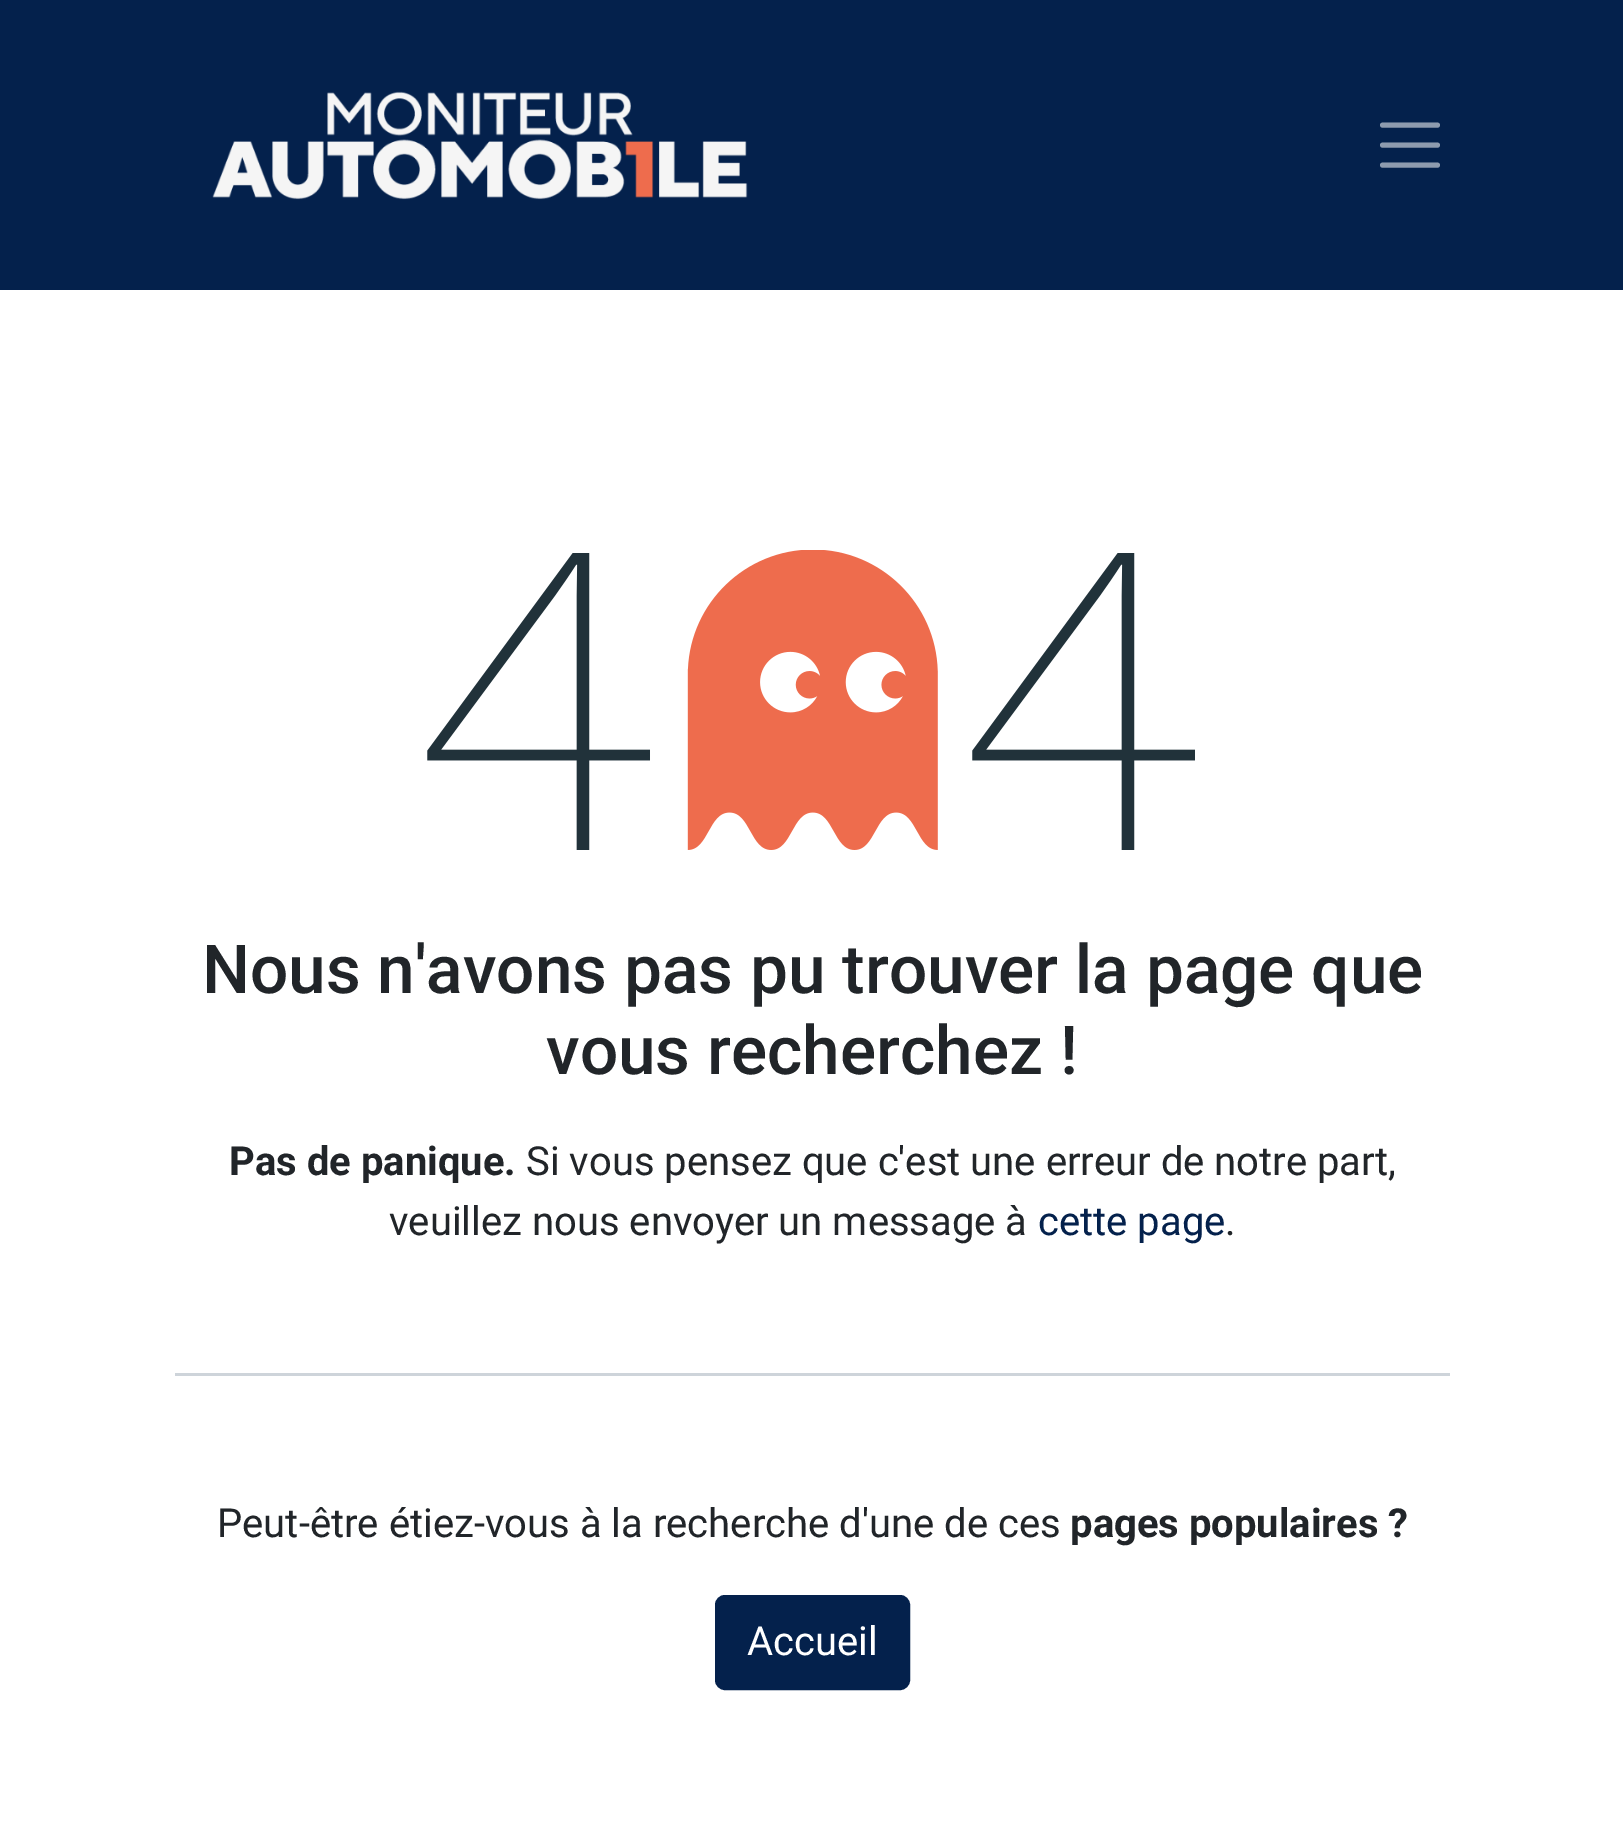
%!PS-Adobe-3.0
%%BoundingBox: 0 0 1623 1836
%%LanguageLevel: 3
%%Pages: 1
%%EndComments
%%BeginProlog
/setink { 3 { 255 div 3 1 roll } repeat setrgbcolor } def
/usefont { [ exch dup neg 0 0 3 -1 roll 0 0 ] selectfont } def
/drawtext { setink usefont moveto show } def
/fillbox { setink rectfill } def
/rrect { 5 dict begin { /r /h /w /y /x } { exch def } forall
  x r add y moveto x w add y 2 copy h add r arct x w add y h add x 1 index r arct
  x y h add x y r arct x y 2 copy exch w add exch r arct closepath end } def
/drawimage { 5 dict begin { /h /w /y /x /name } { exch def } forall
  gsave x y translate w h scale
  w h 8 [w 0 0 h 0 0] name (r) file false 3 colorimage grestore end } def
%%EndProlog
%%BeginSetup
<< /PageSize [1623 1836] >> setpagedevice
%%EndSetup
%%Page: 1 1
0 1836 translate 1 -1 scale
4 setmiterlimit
0 0 1623 1836 255 255 255 fillbox
0 0 1623 290 4 33 76 fillbox
(assets/img1.rgb) 212 91 536 109 drawimage
142 155 174 setink
5 setlinewidth
1 setlinecap
1382.5 125 moveto 1437.5 125 lineto 1382.5 145 moveto 1437.5 145 lineto 1382.5 165 moveto 1437.5 165 lineto stroke
(assets/img2.rgb) 427 550 768 300 drawimage
(Nous n'avons pas pu trouver la page que) 202 993 /Roboto-Medium 67.6 33 37 41 drawtext
(vous recherchez !) 546 1074 /Roboto-Medium 67.6 33 37 41 drawtext
(Pas de panique.) 229 1175 /Roboto-Bold 40 33 37 41 drawtext
(Si vous pensez que c'est une erreur de notre part,) 526 1175 /Roboto-Regular 40 33 37 41 drawtext
(veuillez nous envoyer un message à) 389 1235 /Roboto-Regular 40 33 37 41 drawtext
(cette page) 1038 1235 /Roboto-Regular 40 4 33 76 drawtext
(.) 1225 1235 /Roboto-Regular 40 33 37 41 drawtext
175 1373 1275 3 206 212 218 fillbox
(Peut-être étiez-vous à la recherche d'une de ces) 217 1537 /Roboto-Regular 40 33 37 41 drawtext
(pages populaires ?) 1070 1537 /Roboto-Bold 40 33 37 41 drawtext
4 33 76 setink
716.5 1596.5 192 92 8.5 rrect gsave fill grestore
3 setlinewidth
0 setlinecap
stroke
(Accueil) 747 1655 /Roboto-Regular 40 255 255 255 drawtext
showpage
%%EOF
